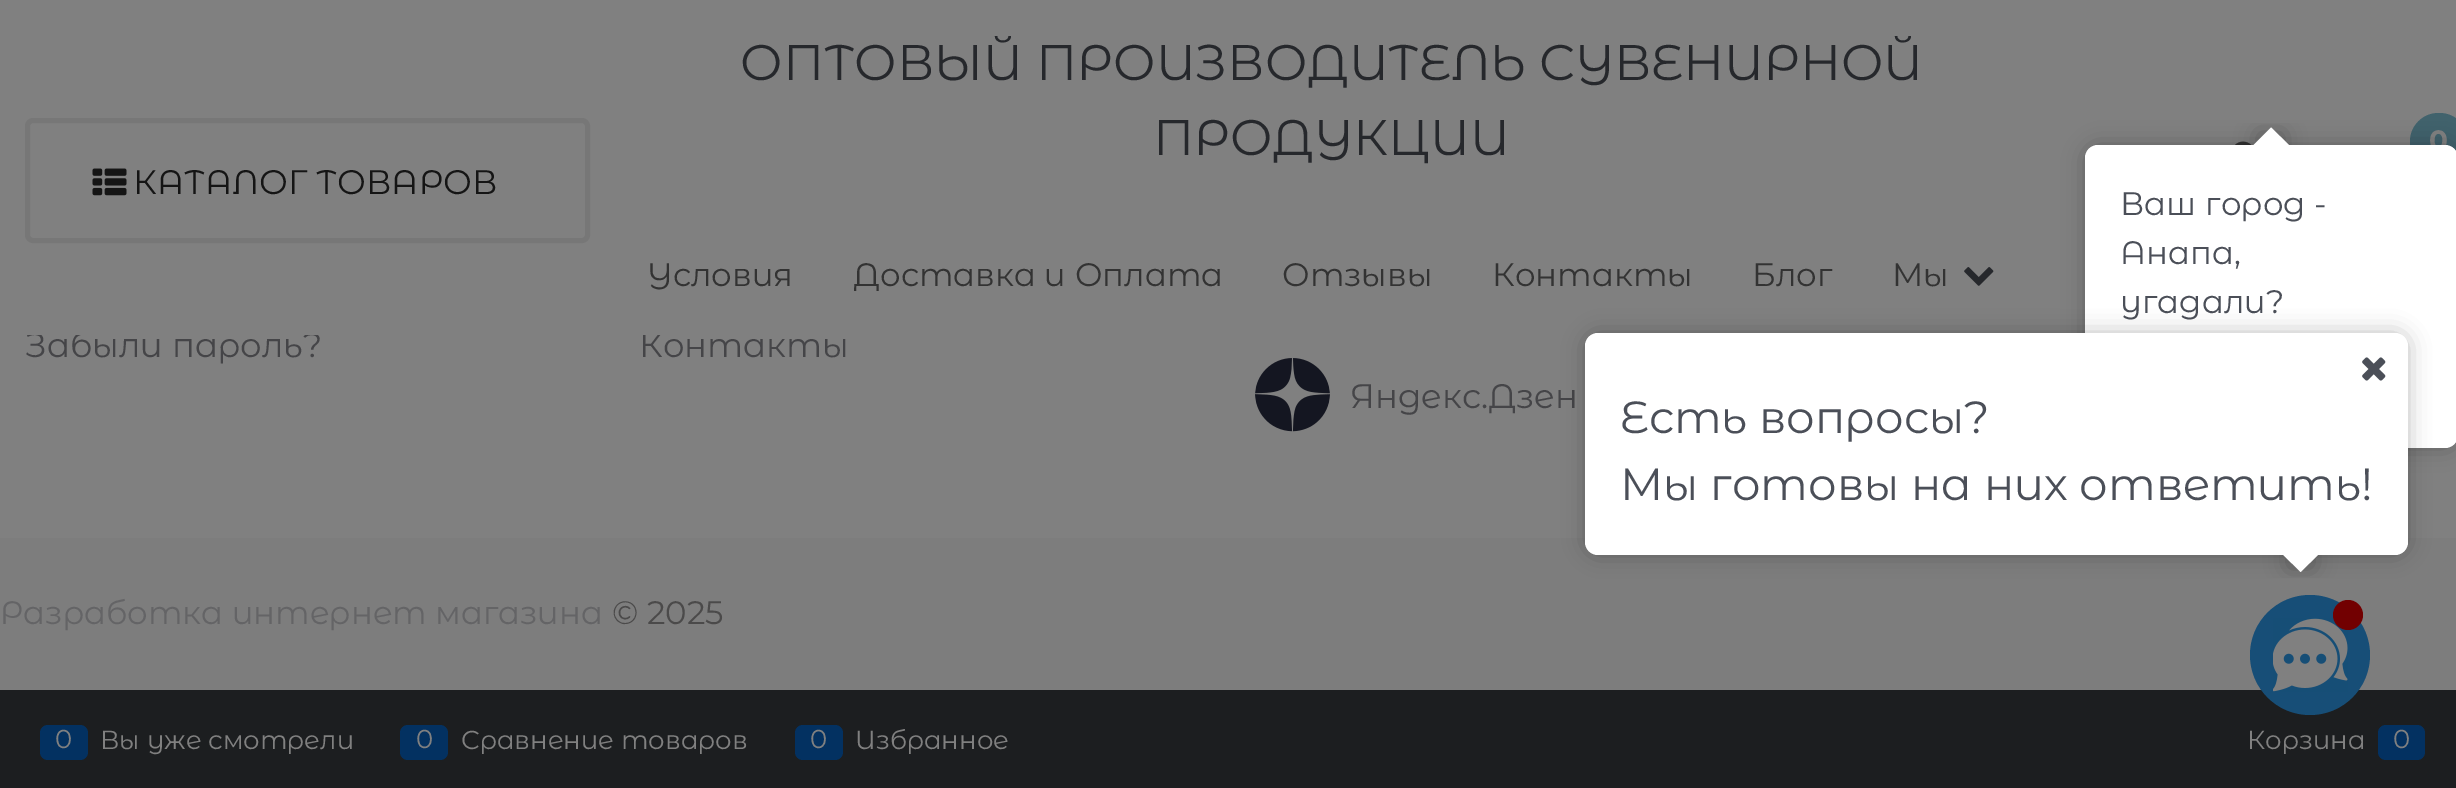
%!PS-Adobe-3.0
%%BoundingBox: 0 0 2456 788
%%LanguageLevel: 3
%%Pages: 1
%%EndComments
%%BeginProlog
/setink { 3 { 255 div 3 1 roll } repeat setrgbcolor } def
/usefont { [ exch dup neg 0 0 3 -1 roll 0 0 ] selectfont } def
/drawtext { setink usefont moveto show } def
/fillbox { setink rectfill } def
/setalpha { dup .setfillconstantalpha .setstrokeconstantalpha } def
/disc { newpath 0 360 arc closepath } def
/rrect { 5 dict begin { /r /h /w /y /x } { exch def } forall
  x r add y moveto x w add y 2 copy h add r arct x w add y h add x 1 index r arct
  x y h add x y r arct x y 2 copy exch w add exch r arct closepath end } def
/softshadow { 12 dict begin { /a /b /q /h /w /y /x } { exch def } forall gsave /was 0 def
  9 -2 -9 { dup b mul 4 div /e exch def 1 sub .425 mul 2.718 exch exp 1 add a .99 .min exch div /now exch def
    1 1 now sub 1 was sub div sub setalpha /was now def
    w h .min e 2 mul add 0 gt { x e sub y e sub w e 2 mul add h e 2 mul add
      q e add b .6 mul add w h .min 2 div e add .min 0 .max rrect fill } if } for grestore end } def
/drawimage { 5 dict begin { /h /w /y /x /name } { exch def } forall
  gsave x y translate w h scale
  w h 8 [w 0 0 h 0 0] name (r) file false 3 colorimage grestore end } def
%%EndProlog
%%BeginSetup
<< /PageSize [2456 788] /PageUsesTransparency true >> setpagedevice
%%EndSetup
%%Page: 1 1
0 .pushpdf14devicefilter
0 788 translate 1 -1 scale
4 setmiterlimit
0 0 2456 788 128 128 128 fillbox
(Забыли пароль?) 25 357 /MontserratAlternates-Regular 34 69 69 72 drawtext
(Контакты) 639 357 /MontserratAlternates-Regular 34 69 69 72 drawtext
27 330 635 5 128 128 128 fillbox
(ОПТОВЫЙ ПРОИЗВОДИТЕЛЬ СУВЕНИРНОЙ) 740 80 /MontserratAlternates-Regular 50 38 40 44 drawtext
(ПРОДУКЦИИ) 1153 155 /MontserratAlternates-Regular 50 38 40 44 drawtext
(Условия) 647 286 /MontserratAlternates-Regular 32.5 51 51 51 drawtext
(Доставка и Оплата) 853 286 /MontserratAlternates-Regular 32.5 51 51 51 drawtext
(Отзывы) 1282 286 /MontserratAlternates-Regular 32.5 51 51 51 drawtext
(Контакты) 1492 286 /MontserratAlternates-Regular 32.5 51 51 51 drawtext
(Блог) 1752 286 /MontserratAlternates-Regular 32.5 51 51 51 drawtext
(Мы) 1892 286 /MontserratAlternates-Regular 32.5 51 51 51 drawtext
(assets/img1.rgb) 1964 267 30 19 drawimage
(assets/img2.rgb) 2234 141 18 4 drawimage
65 98 108 setink
2410 113 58 57 28.5 rrect fill
(0) 2429 150 /Montserrat-Bold 28 128 128 128 drawtext
119 119 119 setink
5 setlinewidth
27.5 120.5 560 120 5.5 rrect stroke
(assets/img3.rgb) 92 168 35 28 drawimage
(КАТАЛОГ ТОВАРОВ) 133 194 /MontserratAlternates-Regular 34 21 21 21 drawtext
(assets/img4.rgb) 1255 358 75 74 drawimage
(Яндекс.Дзен) 1350 408 /MontserratAlternates-Regular 34 69 69 72 drawtext
0 538 2456 152 125 125 125 fillbox
(Разработка интернет магазина) 0 624 /MontserratAlternates-Regular 32.5 100 100 102 drawtext
(© 2025) 612 624 /MontserratAlternates-Regular 32.5 75 74 74 drawtext
0 690 2456 98 28 30 32 fillbox
3 49 97 setink
40 725 48 35 8 rrect fill
(0) 55 748 /MontserratAlternates-Regular 26 128 128 128 drawtext
(Вы уже смотрели) 100 749 /MontserratAlternates-Regular 26 128 128 128 drawtext
3 49 97 setink
400 725 48 35 8 rrect fill
(0) 416 748 /MontserratAlternates-Regular 26 128 128 128 drawtext
(Сравнение товаров) 461 749 /MontserratAlternates-Regular 26 128 128 128 drawtext
3 49 97 setink
795 725 48 35 8 rrect fill
(0) 810 748 /MontserratAlternates-Regular 26 128 128 128 drawtext
(Избранное) 855 749 /MontserratAlternates-Regular 26 128 128 128 drawtext
(Корзина) 2247 749 /MontserratAlternates-Regular 26 128 128 128 drawtext
3 49 97 setink
2378 725 47 35 8 rrect fill
(0) 2393 748 /MontserratAlternates-Regular 26 128 128 128 drawtext
0 0 0 setink
2085 145 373 303 13 11 0.25 softshadow
255 255 255 setink
2085 145 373 303 13 rrect fill
gsave
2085 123 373 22 rectclip
0 0 0 setink
2258 133 25 25 0 11.5 0.25 softshadow
grestore
gsave
2085 123 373 22 rectclip
2271 127.5 moveto 2289 145 lineto 2271 162.5 lineto 2253.5 145 lineto closepath fill
grestore
(Ваш город -) 2120 215 /MontserratAlternates-Regular 32.5 75 79 88 drawtext
(Анапа,) 2120 264 /MontserratAlternates-Regular 32.5 75 79 88 drawtext
(угадали?) 2120 313 /MontserratAlternates-Regular 32.5 75 79 88 drawtext
0 0 0 setink
1585 333 823 222 13 11 0.25 softshadow
255 255 255 setink
1585 333 823 222 13 rrect fill
(assets/img5.rgb) 2362 357 24 24 drawimage
(Есть вопросы?) 1620 433 /MontserratAlternates-Regular 45 75 79 88 drawtext
(Мы готовы на них ответить!) 1620 500 /MontserratAlternates-Regular 45 75 79 88 drawtext
23 78 119 setink
2310 655 60 disc fill
(assets/img6.rgb) 2273 618 75 74 drawimage
114 0 1 setink
2348 615 15 disc fill
gsave
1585 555 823 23 rectclip
0 0 0 setink
2288 543 25 25 0 11.5 0.25 softshadow
grestore
gsave
1585 555 823 23 rectclip
255 255 255 setink
2300.5 536.5 moveto 2318.5 554.5 lineto 2300.5 572 lineto 2283 554.5 lineto closepath fill
grestore
.poppdf14devicefilter showpage
%%EOF
